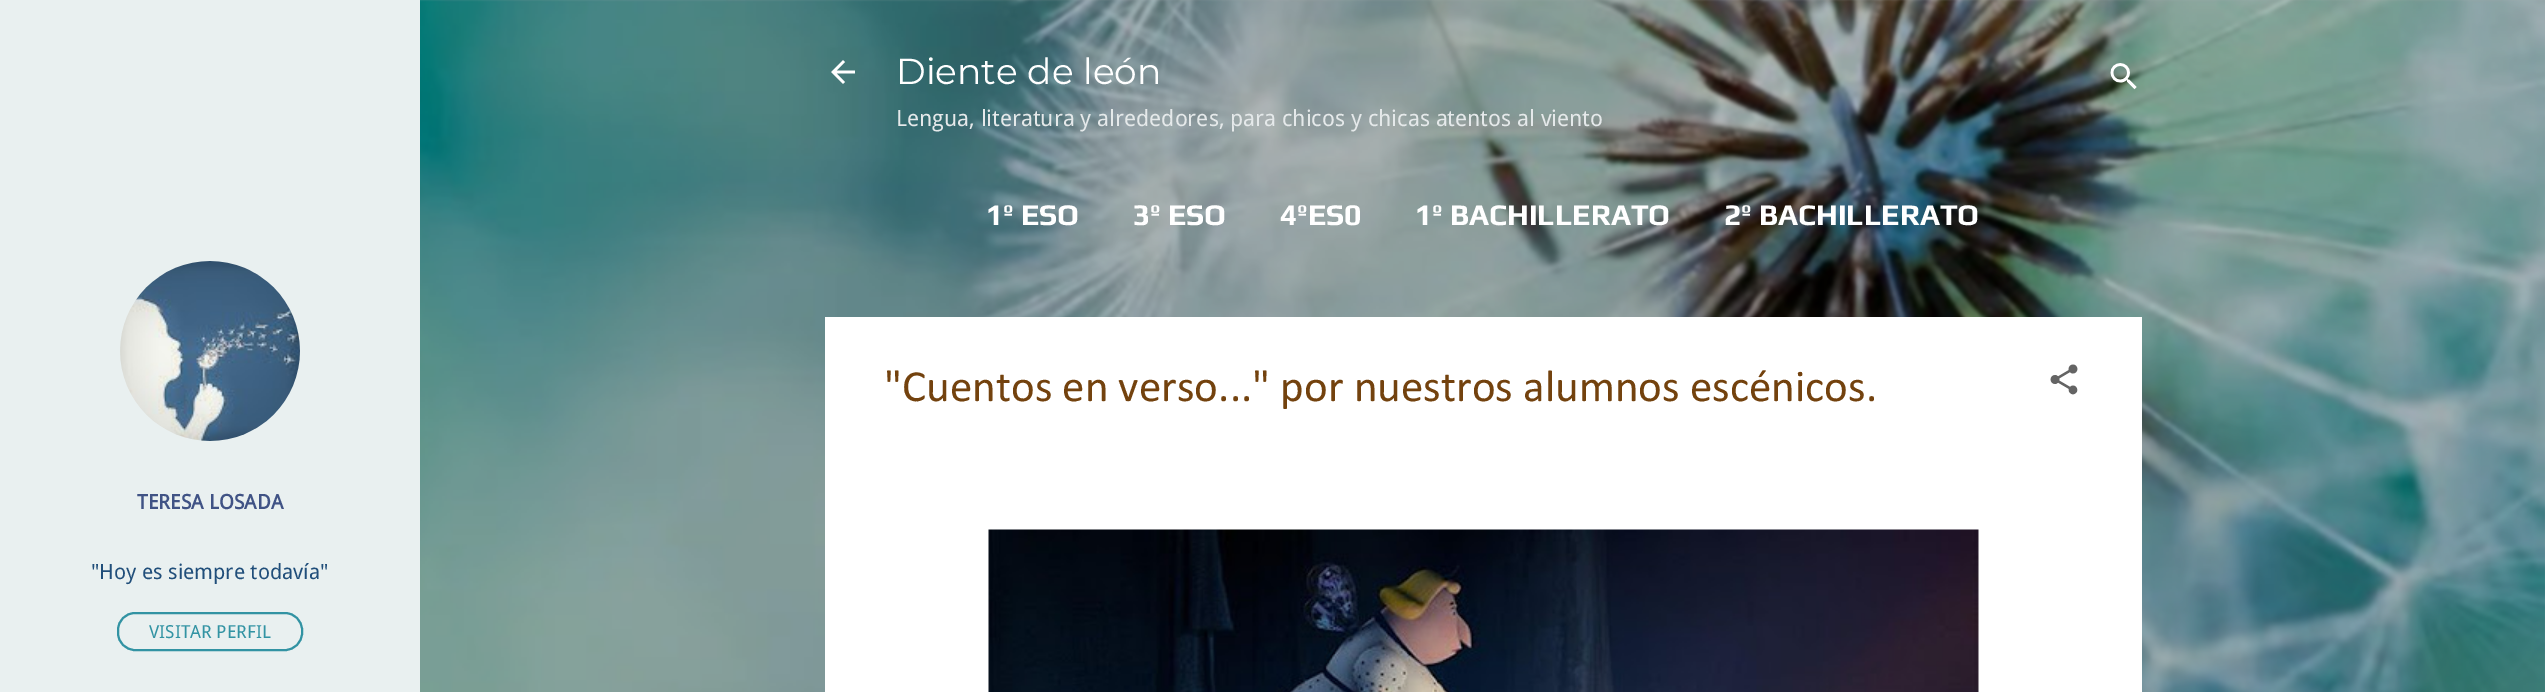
%!PS-Adobe-3.0
%%BoundingBox: 0 0 2545 692
%%LanguageLevel: 3
%%Pages: 1
%%EndComments
%%BeginProlog
/setink { 3 { 255 div 3 1 roll } repeat setrgbcolor } def
/usefont { [ exch dup neg 0 0 3 -1 roll 0 0 ] selectfont } def
/drawtext { setink usefont moveto show } def
/fillbox { setink rectfill } def
/setalpha { dup .setfillconstantalpha .setstrokeconstantalpha } def
/rrect { 5 dict begin { /r /h /w /y /x } { exch def } forall
  x r add y moveto x w add y 2 copy h add r arct x w add y h add x 1 index r arct
  x y h add x y r arct x y 2 copy exch w add exch r arct closepath end } def
/softshadow { 12 dict begin { /a /b /q /h /w /y /x } { exch def } forall gsave /was 0 def
  9 -2 -9 { dup b mul 4 div /e exch def 1 sub .425 mul 2.718 exch exp 1 add a .99 .min exch div /now exch def
    1 1 now sub 1 was sub div sub setalpha /was now def
    w h .min e 2 mul add 0 gt { x e sub y e sub w e 2 mul add h e 2 mul add
      q e add b .6 mul add w h .min 2 div e add .min 0 .max rrect fill } if } for grestore end } def
/drawimage { 5 dict begin { /h /w /y /x /name } { exch def } forall
  gsave x y translate w h scale
  w h 8 [w 0 0 h 0 0] name (r) file false 3 colorimage grestore end } def
%%EndProlog
%%BeginSetup
<< /PageSize [2545 692] /PageUsesTransparency true >> setpagedevice
%%EndSetup
%%Page: 1 1
0 .pushpdf14devicefilter
0 692 translate 1 -1 scale
4 setmiterlimit
0 0 2545 692 255 255 255 fillbox
175 175 175 setink
-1 -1 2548 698 0 1.5 1 softshadow
(assets/img1.rgb) 420 0 2125 692 drawimage
(assets/img2.rgb) 831 60 24 24 drawimage
(Diente de león) 896 84 /Montserrat-Thin 36 255 255 255 drawtext
(Lengua, literatura y alrededores, para chicos y chicas atentos al viento) 896 126 /DroidSans-Regular 22.5 229 233 234 drawtext
(1º ESO) 986 225 /Play-Bold 30 255 255 255 drawtext
(3º ESO) 1133 225 /Play-Bold 30 255 255 255 drawtext
(4ºES0) 1280 225 /Play-Bold 30 255 255 255 drawtext
(1º BACHILLERATO) 1415 225 /Play-Bold 30 255 255 255 drawtext
(2º BACHILLERATO) 1724 225 /Play-Bold 30 255 255 255 drawtext
(assets/img3.rgb) 2110 63 27 27 drawimage
825 317 1317 375 255 255 255 fillbox
("Cuentos en verso..." por nuestros alumnos escénicos.) 884 401 /Calibri-Regular 45 115 66 14 drawtext
(assets/img4.rgb) 2050 364 28 31 drawimage
(assets/img5.rgb) 988 529 991 163 drawimage
0 0 420 692 233 240 240 fillbox
(assets/img6.rgb) 120 261 180 180 drawimage
(TERESA LOSADA) 137 509 /DroidSans-Bold 20.25 64 83 133 drawtext
("Hoy es siempre todavía") 91 579 /DroidSans-Regular 21 32 78 122 drawtext
50 147 163 setink
2 setlinewidth
118 613 184 37 17 rrect stroke
(VISITAR PERFIL) 149 638 /DroidSans-Regular 18 50 147 163 drawtext
.poppdf14devicefilter showpage
%%EOF
